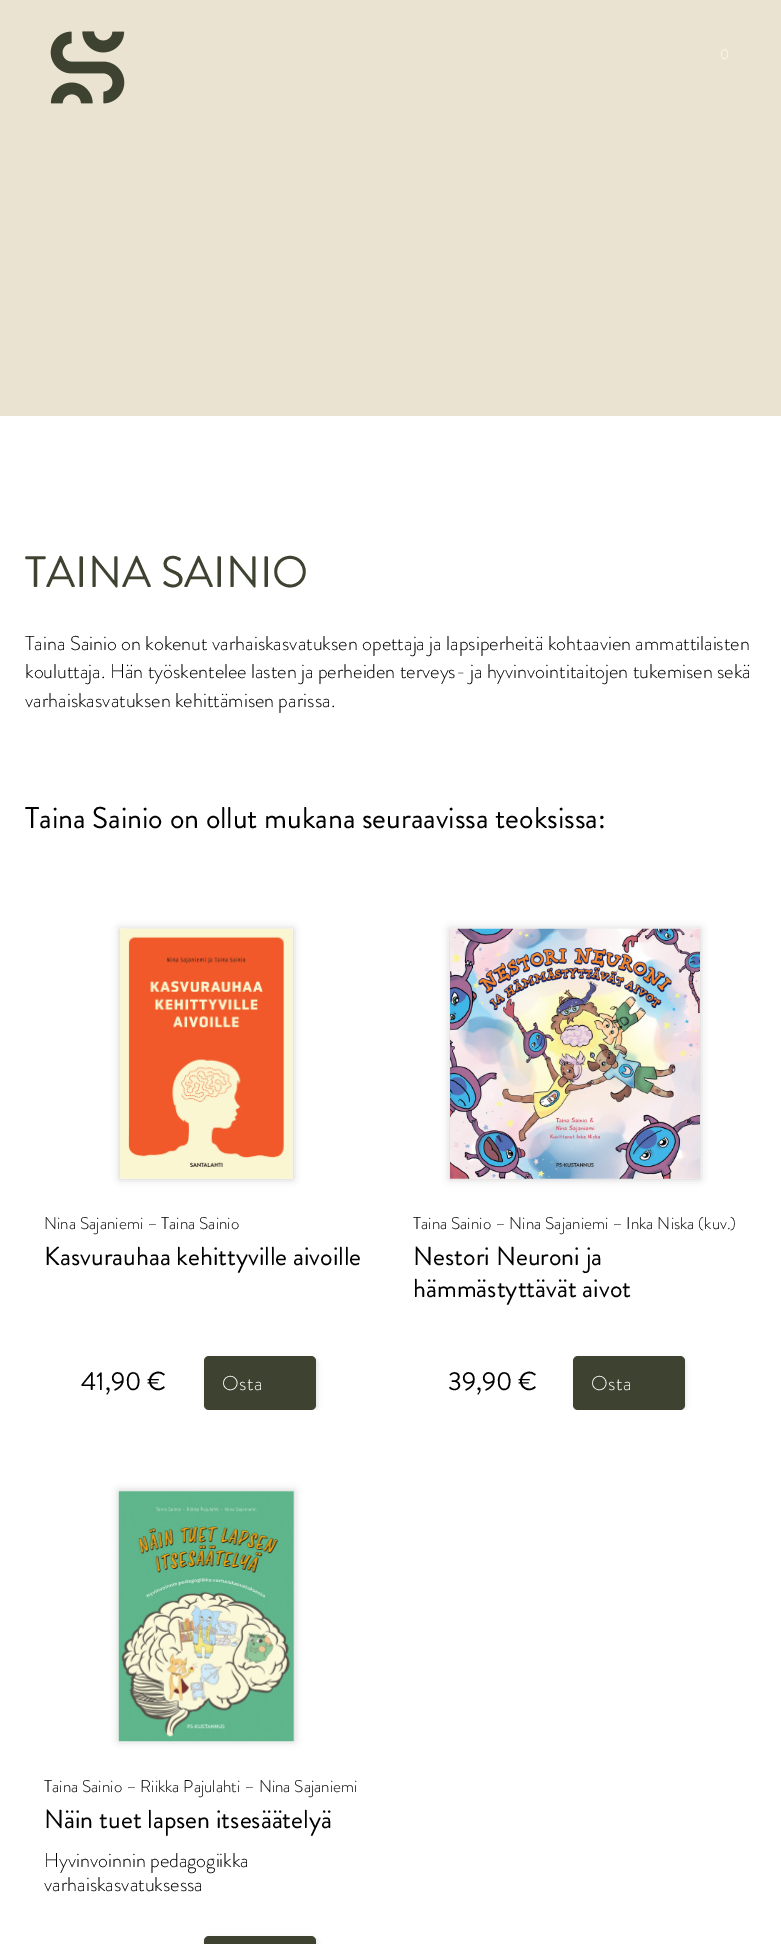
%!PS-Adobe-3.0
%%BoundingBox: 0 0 781 1944
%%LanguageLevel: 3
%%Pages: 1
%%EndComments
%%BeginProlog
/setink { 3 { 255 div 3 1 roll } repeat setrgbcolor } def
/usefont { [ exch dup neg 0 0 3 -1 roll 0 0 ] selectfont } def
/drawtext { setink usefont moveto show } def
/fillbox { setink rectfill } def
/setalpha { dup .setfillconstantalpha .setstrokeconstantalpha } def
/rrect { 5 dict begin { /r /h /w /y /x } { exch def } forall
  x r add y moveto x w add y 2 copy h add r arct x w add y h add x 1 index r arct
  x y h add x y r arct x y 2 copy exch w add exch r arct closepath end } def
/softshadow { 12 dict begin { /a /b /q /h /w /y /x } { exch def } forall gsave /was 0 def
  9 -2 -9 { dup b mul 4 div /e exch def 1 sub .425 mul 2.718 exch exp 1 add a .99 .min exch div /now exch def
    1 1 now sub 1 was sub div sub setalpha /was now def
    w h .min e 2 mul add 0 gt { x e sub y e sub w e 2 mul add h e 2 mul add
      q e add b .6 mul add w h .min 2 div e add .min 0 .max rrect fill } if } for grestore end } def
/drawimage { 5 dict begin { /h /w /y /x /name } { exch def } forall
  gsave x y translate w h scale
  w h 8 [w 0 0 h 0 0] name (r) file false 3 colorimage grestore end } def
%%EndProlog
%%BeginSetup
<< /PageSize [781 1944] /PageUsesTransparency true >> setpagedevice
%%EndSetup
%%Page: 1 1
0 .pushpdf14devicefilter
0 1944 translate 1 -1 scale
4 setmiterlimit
0 0 781 1944 255 255 255 fillbox
0 0 781 416 234 227 209 fillbox
(assets/img1.rgb) 50 31 75 73 drawimage
(0) 720 59 /BrandonGrotesque-Light 14 255 255 255 drawtext
(TAINA SAINIO) 25 587 /BrandonGrotesque-Regular 44 62 66 48 drawtext
(Taina Sainio on kokenut varhaiskasvatuksen opettaja ja lapsiperheitä kohtaavien ammattilaisten) 25 650 /BrandonGrotesque-Light 20 0 0 0 drawtext
(kouluttaja. Hän työskentelee lasten ja perheiden terveys- ja hyvinvointitaitojen tukemisen sekä) 25 678 /BrandonGrotesque-Light 20 0 0 0 drawtext
(varhaiskasvatuksen kehittämisen parissa.) 25 707 /BrandonGrotesque-Light 20 0 0 0 drawtext
(Taina Sainio on ollut mukana seuraavissa teoksissa:) 25 828 /BrandonGrotesque-Regular 30 0 0 0 drawtext
120 929 173 250 0 4 0.2 softshadow
(assets/img2.rgb) 120 928 173 251 drawimage
(Nina Sajaniemi – Taina Sainio) 44 1229 /BrandonGrotesque-Light 17 0 0 0 drawtext
(Kasvurauhaa kehittyville aivoille) 44 1265 /BrandonGrotesque-Regular 26 0 0 0 drawtext
(41,90 €) 81 1390 /BrandonGrotesque-Regular 26 0 0 0 drawtext
gsave
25 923 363 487 rectclip
205 1358 113 53 5 2 0.1 softshadow
grestore
62 66 48 setink
204 1356 112 54 5 rrect fill
/BrandonGrotesque-Light 20 usefont
255 255 255 setink
222 1390 moveto 0.5 0 (Osta) ashow
0 0 0 setink
450 929 250 250 0 4 0.2 softshadow
(assets/img3.rgb) 450 928 250 251 drawimage
(Taina Sainio – Nina Sajaniemi – Inka Niska \(kuv.\)) 413 1229 /BrandonGrotesque-Light 17 0 0 0 drawtext
(Nestori Neuroni ja) 413 1265 /BrandonGrotesque-Regular 26 0 0 0 drawtext
(hämmästyttävät aivot) 413 1297 /BrandonGrotesque-Regular 26 0 0 0 drawtext
(39,90 €) 448 1390 /BrandonGrotesque-Regular 26 0 0 0 drawtext
gsave
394 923 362 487 rectclip
574 1358 112 53 5 2 0.1 softshadow
grestore
62 66 48 setink
573 1356 112 54 5 rrect fill
/BrandonGrotesque-Light 20 usefont
255 255 255 setink
591 1390 moveto 0.5 0 (Osta) ashow
0 0 0 setink
119 1491 175 250 0 4 0.2 softshadow
(assets/img4.rgb) 118 1491 176 251 drawimage
(Taina Sainio – Riikka Pajulahti – Nina Sajaniemi) 44 1792 /BrandonGrotesque-Light 17 0 0 0 drawtext
(Näin tuet lapsen itsesäätelyä) 44 1828 /BrandonGrotesque-Regular 26 0 0 0 drawtext
(Hyvinvoinnin pedagogiikka) 44 1867 /BrandonGrotesque-Light 20 0 0 0 drawtext
(varhaiskasvatuksessa) 44 1891 /BrandonGrotesque-Light 20 0 0 0 drawtext
205 1938 113 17 5 2 0.1 softshadow
62 66 48 setink
204 1936 112 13 5 rrect fill
.poppdf14devicefilter showpage
%%EOF
